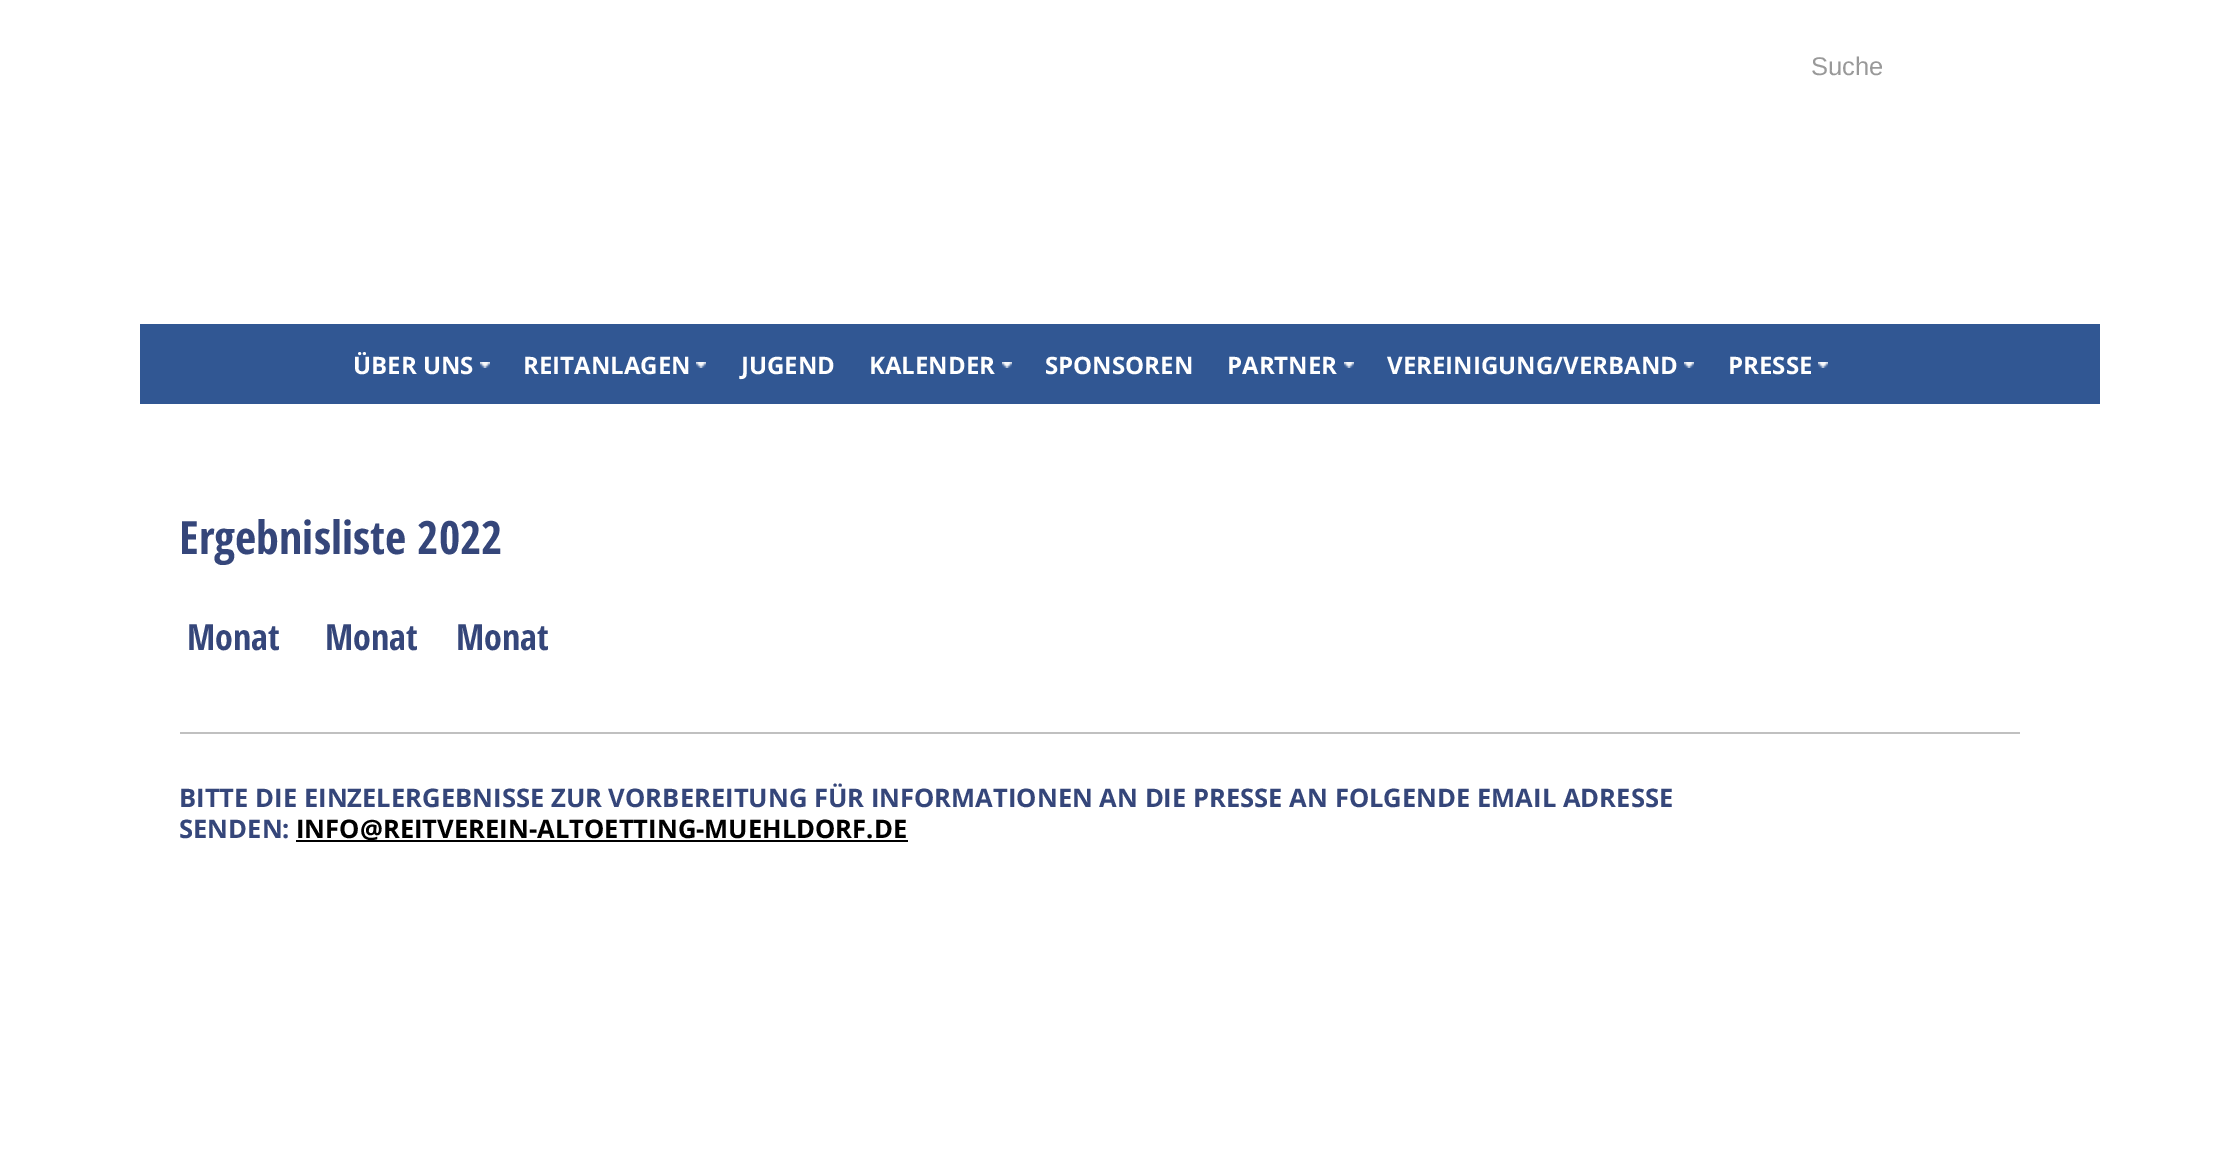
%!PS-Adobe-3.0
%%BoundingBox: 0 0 2237 1158
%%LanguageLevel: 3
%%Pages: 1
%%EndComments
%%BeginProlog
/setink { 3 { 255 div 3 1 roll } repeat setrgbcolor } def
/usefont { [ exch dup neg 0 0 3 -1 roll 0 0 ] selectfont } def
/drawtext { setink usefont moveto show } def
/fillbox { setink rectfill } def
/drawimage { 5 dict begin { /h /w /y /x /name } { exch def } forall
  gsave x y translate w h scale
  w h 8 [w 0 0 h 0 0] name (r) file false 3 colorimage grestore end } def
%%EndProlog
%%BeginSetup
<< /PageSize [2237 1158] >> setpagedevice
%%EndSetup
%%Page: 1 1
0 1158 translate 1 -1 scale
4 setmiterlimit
0 0 2237 1158 255 255 255 fillbox
(Suche) 1811 75 /LiberationSans-Regular 25.6 153 153 153 drawtext
140 324 1960 80 49 87 147 fillbox
(assets/img1.rgb) 480 362 10 6 drawimage
(ÜBER UNS) 353 374 /OpenSans-Bold 24 255 255 255 drawtext
(assets/img1.rgb) 696 362 10 6 drawimage
(REITANLAGEN) 523 374 /OpenSans-Bold 24 255 255 255 drawtext
(JUGEND) 741 374 /OpenSans-Bold 24 255 255 255 drawtext
(assets/img1.rgb) 1002 362 10 6 drawimage
(KALENDER) 869 374 /OpenSans-Bold 24 255 255 255 drawtext
(SPONSOREN) 1045 374 /OpenSans-Bold 24 255 255 255 drawtext
(assets/img1.rgb) 1344 362 10 6 drawimage
(PARTNER) 1227 374 /OpenSans-Bold 24 255 255 255 drawtext
(assets/img1.rgb) 1684 362 10 6 drawimage
(VEREINIGUNG/VERBAND) 1387 374 /OpenSans-Bold 24 255 255 255 drawtext
(assets/img1.rgb) 1818 362 10 6 drawimage
(PRESSE) 1728 374 /OpenSans-Bold 24 255 255 255 drawtext
(Ergebnisliste 2022) 179 554 /OpenSansCondensed-Bold 46 53 70 122 drawtext
(Monat) 187 650 /OpenSansCondensed-Bold 36 53 70 122 drawtext
(Monat) 325 650 /OpenSansCondensed-Bold 36 53 70 122 drawtext
(Monat) 456 650 /OpenSansCondensed-Bold 36 53 70 122 drawtext
180 732 1840 2 192 192 192 fillbox
(BITTE DIE EINZELERGEBNISSE ZUR VORBEREITUNG FÜR INFORMATIONEN AN DIE PRESSE AN FOLGENDE EMAIL ADRESSE) 179 807 /OpenSans-Bold 25.6 53 70 122 drawtext
(SENDEN:) 179 838 /OpenSans-Bold 25.6 53 70 122 drawtext
296 840 612 2 0 0 0 fillbox
(INFO@REITVEREIN-ALTOETTING-MUEHLDORF.DE) 296 838 /OpenSans-Bold 25.6 0 0 0 drawtext
showpage
%%EOF
